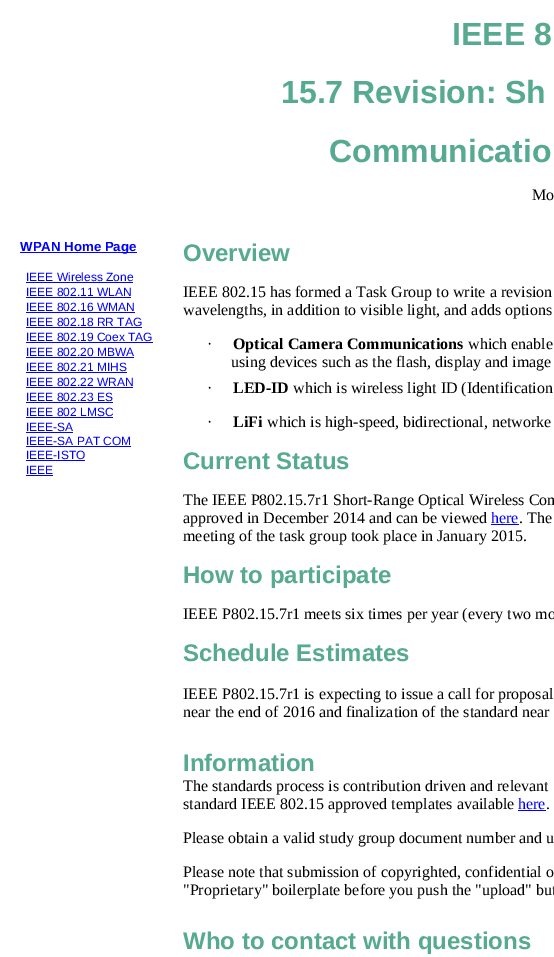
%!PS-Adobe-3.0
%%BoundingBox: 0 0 554 957
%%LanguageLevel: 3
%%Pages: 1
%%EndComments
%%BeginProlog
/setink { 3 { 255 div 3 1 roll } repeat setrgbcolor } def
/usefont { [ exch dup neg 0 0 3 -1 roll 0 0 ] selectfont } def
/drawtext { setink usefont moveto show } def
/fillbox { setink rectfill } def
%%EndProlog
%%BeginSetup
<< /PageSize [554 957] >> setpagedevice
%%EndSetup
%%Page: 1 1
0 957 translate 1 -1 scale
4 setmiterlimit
0 0 554 957 255 255 255 fillbox
(IEEE 8) 452 45 /LiberationSans-Bold 32 85 170 143 drawtext
(15.7 Revision: Sh) 281 103 /LiberationSans-Bold 32 85 170 143 drawtext
(Communicatio) 329 162 /LiberationSans-Bold 32 85 170 143 drawtext
(Mo) 532 200 /LiberationSerif-Regular 16 0 0 0 drawtext
20 252 117 1 0 0 255 fillbox
(WPAN Home Page) 20 251 /LiberationSans-Bold 13.25 0 0 255 drawtext
(IEEE Wireless Zone) 26 281 /LiberationSans-Regular 12 0 0 255 drawtext
26 282 107 1 0 0 255 fillbox
(IEEE 802.11 WLAN) 26 296 /LiberationSans-Regular 12 0 0 255 drawtext
26 297 105 1 0 0 255 fillbox
(IEEE 802.16 WMAN) 26 311 /LiberationSans-Regular 12 0 0 255 drawtext
26 312 109 1 0 0 255 fillbox
(IEEE 802.18 RR TAG) 26 326 /LiberationSans-Regular 12 0 0 255 drawtext
26 327 116 1 0 0 255 fillbox
(IEEE 802.19 Coex TAG) 26 341 /LiberationSans-Regular 12 0 0 255 drawtext
26 342 127 1 0 0 255 fillbox
(IEEE 802.20 MBWA) 26 356 /LiberationSans-Regular 12 0 0 255 drawtext
26 357 108 1 0 0 255 fillbox
(IEEE 802.21 MIHS) 26 371 /LiberationSans-Regular 12 0 0 255 drawtext
26 372 101 1 0 0 255 fillbox
(IEEE 802.22 WRAN) 26 386 /LiberationSans-Regular 12 0 0 255 drawtext
26 387 107 1 0 0 255 fillbox
(IEEE 802.23 ES) 26 401 /LiberationSans-Regular 12 0 0 255 drawtext
26 402 87 1 0 0 255 fillbox
(IEEE 802 LMSC) 26 416 /LiberationSans-Regular 12 0 0 255 drawtext
26 417 87 1 0 0 255 fillbox
(IEEE-SA) 26 431 /LiberationSans-Regular 12 0 0 255 drawtext
26 432 47 1 0 0 255 fillbox
(IEEE-SA PAT COM) 26 445 /LiberationSans-Regular 12 0 0 255 drawtext
26 446 105 1 0 0 255 fillbox
(IEEE-ISTO) 26 459 /LiberationSans-Regular 12 0 0 255 drawtext
26 460 59 1 0 0 255 fillbox
(IEEE) 26 474 /LiberationSans-Regular 12 0 0 255 drawtext
26 475 27 1 0 0 255 fillbox
(Overview) 183 261 /LiberationSans-Bold 24 85 170 143 drawtext
(IEEE 802.15 has formed a Task Group to write a revision) 183 297 /LiberationSerif-Regular 16 0 0 0 drawtext
(wavelengths, in addition to visible light, and adds options) 183 315 /LiberationSerif-Regular 16 0 0 0 drawtext
(·) 207 349 /LiberationSerif-Regular 16 0 0 0 drawtext
(Optical Camera Communications) 233 349 /LiberationSerif-Bold 16 0 0 0 drawtext
(which enable) 468 349 /LiberationSerif-Regular 16 0 0 0 drawtext
(using devices such as the flash, display and image) 231 367 /LiberationSerif-Regular 16 0 0 0 drawtext
(·) 207 393 /LiberationSerif-Regular 16 0 0 0 drawtext
(LED-ID) 233 393 /LiberationSerif-Bold 16 0 0 0 drawtext
(which is wireless light ID \(Identification) 293 393 /LiberationSerif-Regular 16 0 0 0 drawtext
(·) 207 427 /LiberationSerif-Regular 16 0 0 0 drawtext
(LiFi) 233 427 /LiberationSerif-Bold 16 0 0 0 drawtext
(which is high-speed, bidirectional, networke) 267 427 /LiberationSerif-Regular 16 0 0 0 drawtext
(Current Status) 183 469 /LiberationSans-Bold 24 85 170 143 drawtext
(The IEEE P802.15.7r1 Short-Range Optical Wireless Com) 183 505 /LiberationSerif-Regular 16 0 0 0 drawtext
(approved in December 2014 and can be viewed) 183 523 /LiberationSerif-Regular 16 0 0 0 drawtext
(here) 491 523 /LiberationSerif-Regular 16 0 0 255 drawtext
491 524 28 1 0 0 255 fillbox
(. The) 519 523 /LiberationSerif-Regular 16 0 0 0 drawtext
(meeting of the task group took place in January 2015.) 183 541 /LiberationSerif-Regular 16 0 0 0 drawtext
(How to participate) 183 583 /LiberationSans-Bold 24 85 170 143 drawtext
(IEEE P802.15.7r1 meets six times per year \(every two mo) 183 619 /LiberationSerif-Regular 16 0 0 0 drawtext
(Schedule Estimates) 183 661 /LiberationSans-Bold 24 85 170 143 drawtext
(IEEE P802.15.7r1 is expecting to issue a call for proposal) 183 699 /LiberationSerif-Regular 16 0 0 0 drawtext
(near the end of 2016 and finalization of the standard near) 183 717 /LiberationSerif-Regular 16 0 0 0 drawtext
(Information) 183 771 /LiberationSans-Bold 24 85 170 143 drawtext
(The standards process is contribution driven and relevant) 183 791 /LiberationSerif-Regular 16 0 0 0 drawtext
(standard IEEE 802.15 approved templates available) 183 809 /LiberationSerif-Regular 16 0 0 0 drawtext
(here) 518 809 /LiberationSerif-Regular 16 0 0 255 drawtext
518 810 28 1 0 0 255 fillbox
(.) 546 809 /LiberationSerif-Regular 16 0 0 0 drawtext
(Please obtain a valid study group document number and u) 183 843 /LiberationSerif-Regular 16 0 0 0 drawtext
(Please note that submission of copyrighted, confidential o) 183 877 /LiberationSerif-Regular 16 0 0 0 drawtext
("Proprietary" boilerplate before you push the "upload" but) 183 895 /LiberationSerif-Regular 16 0 0 0 drawtext
(Who to contact with questions) 183 949 /LiberationSans-Bold 24 85 170 143 drawtext
showpage
%%EOF
